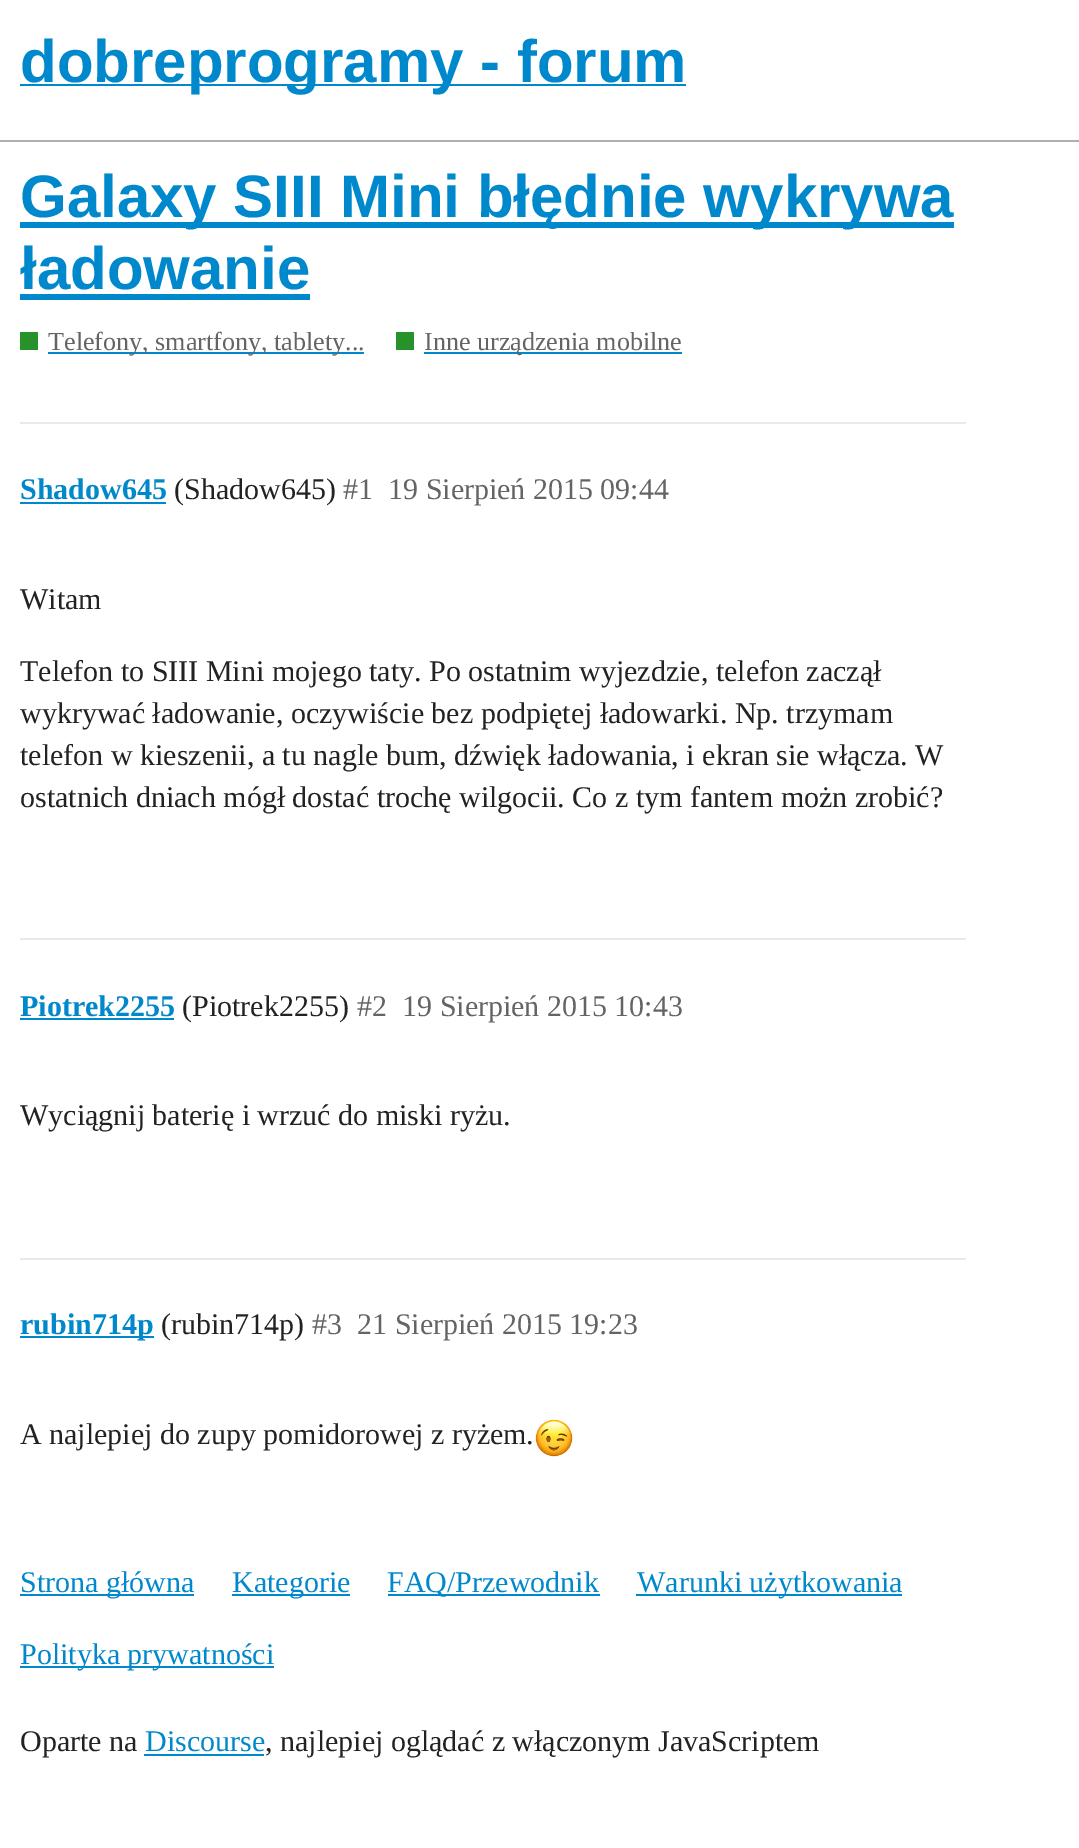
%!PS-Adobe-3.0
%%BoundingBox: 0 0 1079 1848
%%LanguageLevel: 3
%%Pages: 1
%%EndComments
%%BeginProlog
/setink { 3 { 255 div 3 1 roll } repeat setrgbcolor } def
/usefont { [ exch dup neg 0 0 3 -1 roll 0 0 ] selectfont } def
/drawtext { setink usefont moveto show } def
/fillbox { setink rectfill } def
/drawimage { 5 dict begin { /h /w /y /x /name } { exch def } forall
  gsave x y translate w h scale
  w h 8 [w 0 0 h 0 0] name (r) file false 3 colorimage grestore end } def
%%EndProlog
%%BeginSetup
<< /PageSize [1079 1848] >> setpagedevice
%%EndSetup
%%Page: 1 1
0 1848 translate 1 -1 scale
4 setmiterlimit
0 0 1079 1848 255 255 255 fillbox
0 140 1079 2 175 175 175 fillbox
20 84 666 2 0 136 204 fillbox
(dobreprogramy - forum) 20 82 /LiberationSans-Bold 60 0 136 204 drawtext
20 222 934 6 0 136 204 fillbox
(Galaxy SIII Mini błędnie wykrywa) 20 217 /LiberationSans-Bold 60 0 136 204 drawtext
(ładowanie) 20 289 /LiberationSans-Bold 60 0 136 204 drawtext
20 294 290 6 0 136 204 fillbox
20 332 18 18 39 146 41 fillbox
48 352 316 2 0 136 204 fillbox
(Telefony, smartfony, tablety...) 48 350 /LiberationSerif-Regular 26.1 100 100 100 drawtext
396 332 18 18 39 146 41 fillbox
424 352 258 2 0 136 204 fillbox
(Inne urządzenia mobilne) 424 350 /LiberationSerif-Regular 26.1 100 100 100 drawtext
20 422 946 2 233 233 233 fillbox
(Shadow645) 20 499 /LiberationSerif-Bold 30 0 136 204 drawtext
20 502 146 2 0 136 204 fillbox
(\(Shadow645\)) 174 499 /LiberationSerif-Regular 30 34 34 34 drawtext
(#1) 343 499 /LiberationSerif-Regular 30 100 100 100 drawtext
(19 Sierpień 2015 09:44) 388 499 /LiberationSerif-Regular 30 100 100 100 drawtext
(Witam) 20 609 /LiberationSerif-Regular 30 34 34 34 drawtext
(Telefon to SIII Mini mojego taty. Po ostatnim wyjezdzie, telefon zaczął) 20 681 /LiberationSerif-Regular 30 34 34 34 drawtext
(wykrywać ładowanie, oczywiście bez podpiętej ładowarki. Np. trzymam) 20 723 /LiberationSerif-Regular 30 34 34 34 drawtext
(telefon w kieszenii, a tu nagle bum, dźwięk ładowania, i ekran sie włącza. W) 20 765 /LiberationSerif-Regular 30 34 34 34 drawtext
(ostatnich dniach mógł dostać trochę wilgocii. Co z tym fantem możn zrobić?) 20 807 /LiberationSerif-Regular 30 34 34 34 drawtext
20 938 946 2 233 233 233 fillbox
(Piotrek2255) 20 1016 /LiberationSerif-Bold 30 0 136 204 drawtext
20 1018 154 2 0 136 204 fillbox
(\(Piotrek2255\)) 182 1016 /LiberationSerif-Regular 30 34 34 34 drawtext
(#2) 357 1016 /LiberationSerif-Regular 30 100 100 100 drawtext
(19 Sierpień 2015 10:43) 402 1016 /LiberationSerif-Regular 30 100 100 100 drawtext
(Wyciągnij baterię i wrzuć do miski ryżu.) 20 1125 /LiberationSerif-Regular 30 34 34 34 drawtext
20 1258 946 2 233 233 233 fillbox
20 1336 134 2 0 136 204 fillbox
(rubin714p) 20 1334 /LiberationSerif-Bold 30 0 136 204 drawtext
(\(rubin714p\)) 161 1334 /LiberationSerif-Regular 30 34 34 34 drawtext
(#3) 312 1334 /LiberationSerif-Regular 30 100 100 100 drawtext
(21 Sierpień 2015 19:23) 357 1334 /LiberationSerif-Regular 30 100 100 100 drawtext
(A najlepiej do zupy pomidorowej z ryżem.) 20 1444 /LiberationSerif-Regular 30 34 34 34 drawtext
(assets/img1.rgb) 535 1419 38 38 drawimage
20 1594 174 2 0 136 204 fillbox
(Strona główna) 20 1592 /LiberationSerif-Regular 30 0 136 204 drawtext
232 1594 118 2 0 136 204 fillbox
(Kategorie) 232 1592 /LiberationSerif-Regular 30 0 136 204 drawtext
388 1594 212 2 0 136 204 fillbox
(FAQ/Przewodnik) 387 1592 /LiberationSerif-Regular 30 0 136 204 drawtext
636 1594 266 2 0 136 204 fillbox
(Warunki użytkowania) 637 1592 /LiberationSerif-Regular 30 0 136 204 drawtext
20 1666 254 2 0 136 204 fillbox
(Polityka prywatności) 20 1664 /LiberationSerif-Regular 30 0 136 204 drawtext
(Oparte na) 20 1751 /LiberationSerif-Regular 30 34 34 34 drawtext
(Discourse) 145 1751 /LiberationSerif-Regular 30 0 136 204 drawtext
144 1754 120 2 0 136 204 fillbox
(, najlepiej oglądać z włączonym JavaScriptem) 265 1751 /LiberationSerif-Regular 30 34 34 34 drawtext
showpage
%%EOF
